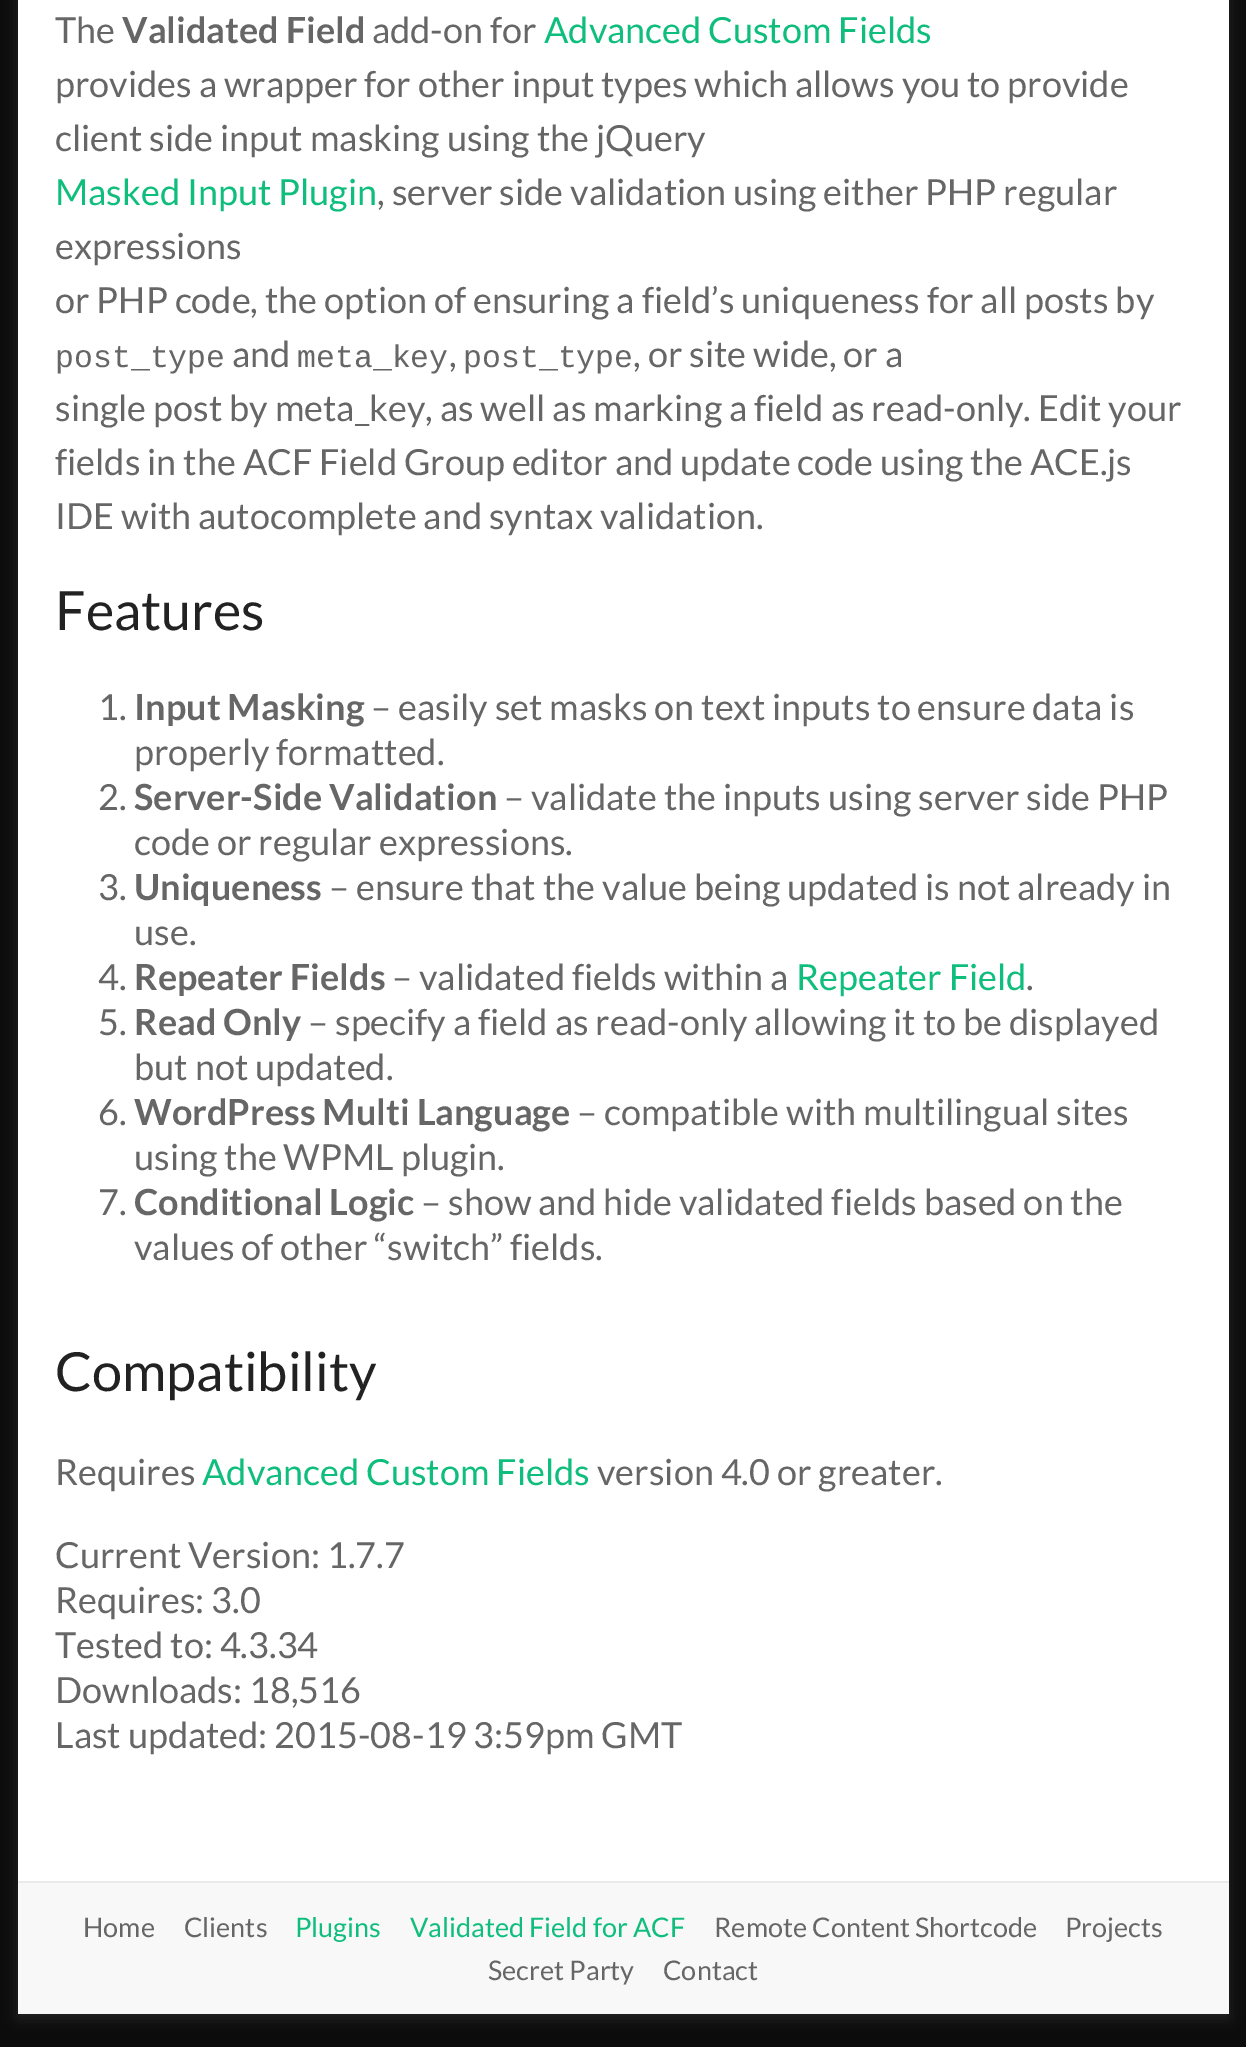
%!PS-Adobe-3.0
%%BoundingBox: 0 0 1246 2047
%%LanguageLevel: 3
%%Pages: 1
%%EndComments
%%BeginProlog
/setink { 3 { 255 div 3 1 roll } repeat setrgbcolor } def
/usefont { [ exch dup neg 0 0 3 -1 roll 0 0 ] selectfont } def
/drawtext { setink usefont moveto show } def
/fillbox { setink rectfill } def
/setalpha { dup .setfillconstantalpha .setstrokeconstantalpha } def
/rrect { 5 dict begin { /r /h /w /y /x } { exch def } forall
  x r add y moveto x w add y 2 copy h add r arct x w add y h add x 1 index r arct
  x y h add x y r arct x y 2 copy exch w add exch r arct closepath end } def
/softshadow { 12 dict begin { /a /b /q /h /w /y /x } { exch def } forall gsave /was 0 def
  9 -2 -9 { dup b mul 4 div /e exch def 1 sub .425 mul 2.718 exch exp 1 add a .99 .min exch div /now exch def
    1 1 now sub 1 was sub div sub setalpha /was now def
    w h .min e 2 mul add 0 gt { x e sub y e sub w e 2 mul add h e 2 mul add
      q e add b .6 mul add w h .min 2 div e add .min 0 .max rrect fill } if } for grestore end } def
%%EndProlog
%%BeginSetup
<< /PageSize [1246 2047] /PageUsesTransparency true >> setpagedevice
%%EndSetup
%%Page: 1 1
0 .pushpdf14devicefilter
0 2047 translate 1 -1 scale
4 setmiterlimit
0 0 1246 2047 12 12 12 fillbox
100 100 100 setink
18 -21 1211 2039 0 7 0.3 softshadow
18 0 1211 1881 255 255 255 fillbox
(The) 55 43 /Lato-Regular 36 102 102 102 drawtext
(Validated Field) 122 43 /Lato-Bold 36 102 102 102 drawtext
(add-on for) 372 43 /Lato-Regular 36 102 102 102 drawtext
(Advanced Custom Fields) 544 43 /Lato-Regular 36 15 190 124 drawtext
(provides a wrapper for other input types which allows you to provide) 55 97 /Lato-Regular 36 102 102 102 drawtext
(client side input masking using the jQuery) 55 151 /Lato-Regular 36 102 102 102 drawtext
(Masked Input Plugin) 55 205 /Lato-Regular 36 15 190 124 drawtext
(, server side validation using either PHP regular) 377 205 /Lato-Regular 36 102 102 102 drawtext
(expressions) 55 259 /Lato-Regular 36 102 102 102 drawtext
(or PHP code, the option of ensuring a field’s uniqueness for all posts by) 55 313 /Lato-Regular 36 102 102 102 drawtext
(post_type) 55 367 /LiberationMono-Regular 31.5 102 102 102 drawtext
(and) 232 367 /Lato-Regular 36 102 102 102 drawtext
(meta_key) 297 367 /LiberationMono-Regular 31.5 102 102 102 drawtext
(,) 449 367 /Lato-Regular 36 102 102 102 drawtext
(post_type) 463 367 /LiberationMono-Regular 31.5 102 102 102 drawtext
(, or site wide, or a) 633 367 /Lato-Regular 36 102 102 102 drawtext
(single post by meta_key, as well as marking a field as read-only. Edit your) 55 421 /Lato-Regular 36 102 102 102 drawtext
(fields in the ACF Field Group editor and update code using the ACE.js) 55 475 /Lato-Regular 36 102 102 102 drawtext
(IDE with autocomplete and syntax validation.) 55 529 /Lato-Regular 36 102 102 102 drawtext
(Features) 55 630 /Lato-Regular 54 34 34 34 drawtext
(1.) 98 720 /Lato-Regular 36 102 102 102 drawtext
(Input Masking) 134 720 /Lato-Bold 36 102 102 102 drawtext
(– easily set masks on text inputs to ensure data is) 371 720 /Lato-Regular 36 102 102 102 drawtext
(properly formatted.) 134 765 /Lato-Regular 36 102 102 102 drawtext
(2.) 98 810 /Lato-Regular 36 102 102 102 drawtext
(Server-Side Validation) 134 810 /Lato-Bold 36 102 102 102 drawtext
(– validate the inputs using server side PHP) 504 810 /Lato-Regular 36 102 102 102 drawtext
(code or regular expressions.) 134 855 /Lato-Regular 36 102 102 102 drawtext
(3.) 98 900 /Lato-Regular 36 102 102 102 drawtext
(Uniqueness) 134 900 /Lato-Bold 36 102 102 102 drawtext
(– ensure that the value being updated is not already in) 329 900 /Lato-Regular 36 102 102 102 drawtext
(use.) 134 945 /Lato-Regular 36 102 102 102 drawtext
(4.) 98 990 /Lato-Regular 36 102 102 102 drawtext
(Repeater Fields) 134 990 /Lato-Bold 36 102 102 102 drawtext
(– validated fields within a) 392 990 /Lato-Regular 36 102 102 102 drawtext
(Repeater Field) 796 990 /Lato-Regular 36 15 190 124 drawtext
(.) 1026 990 /Lato-Regular 36 102 102 102 drawtext
(5.) 98 1035 /Lato-Regular 36 102 102 102 drawtext
(Read Only) 134 1035 /Lato-Bold 36 102 102 102 drawtext
(– specify a field as read-only allowing it to be displayed) 308 1035 /Lato-Regular 36 102 102 102 drawtext
(but not updated.) 134 1080 /Lato-Regular 36 102 102 102 drawtext
(6.) 98 1125 /Lato-Regular 36 102 102 102 drawtext
(WordPress Multi Language) 134 1125 /Lato-Bold 36 102 102 102 drawtext
(– compatible with multilingual sites) 577 1125 /Lato-Regular 36 102 102 102 drawtext
(using the WPML plugin.) 134 1170 /Lato-Regular 36 102 102 102 drawtext
(7.) 98 1215 /Lato-Regular 36 102 102 102 drawtext
(Conditional Logic) 134 1215 /Lato-Bold 36 102 102 102 drawtext
(– show and hide validated fields based on the) 421 1215 /Lato-Regular 36 102 102 102 drawtext
(values of other “switch” fields.) 134 1260 /Lato-Regular 36 102 102 102 drawtext
(Compatibility) 55 1391 /Lato-Regular 54 34 34 34 drawtext
(Requires) 55 1485 /Lato-Regular 36 102 102 102 drawtext
(Advanced Custom Fields) 202 1485 /Lato-Regular 36 15 190 124 drawtext
(version 4.0 or greater.) 597 1485 /Lato-Regular 36 102 102 102 drawtext
(Current Version: 1.7.7) 55 1568 /Lato-Regular 36 102 102 102 drawtext
(Requires: 3.0) 55 1613 /Lato-Regular 36 102 102 102 drawtext
(Tested to: 4.3.34) 55 1658 /Lato-Regular 36 102 102 102 drawtext
(Downloads: 18,516) 55 1703 /Lato-Regular 36 102 102 102 drawtext
(Last updated: 2015-08-19 3:59pm GMT) 55 1748 /Lato-Regular 36 102 102 102 drawtext
18 1883 1211 131 248 248 248 fillbox
18 1881 1211 2 234 234 234 fillbox
(Home) 83 1937 /Lato-Regular 27 102 102 102 drawtext
(Clients) 184 1937 /Lato-Regular 27 102 102 102 drawtext
(Plugins) 295 1937 /Lato-Regular 27 15 190 124 drawtext
(Validated Field for ACF) 410 1937 /Lato-Regular 27 15 190 124 drawtext
(Remote Content Shortcode) 714 1937 /Lato-Regular 27 102 102 102 drawtext
(Projects) 1065 1937 /Lato-Regular 27 102 102 102 drawtext
(Secret Party) 488 1980 /Lato-Regular 27 102 102 102 drawtext
(Contact) 663 1980 /Lato-Regular 27 102 102 102 drawtext
.poppdf14devicefilter showpage
%%EOF
